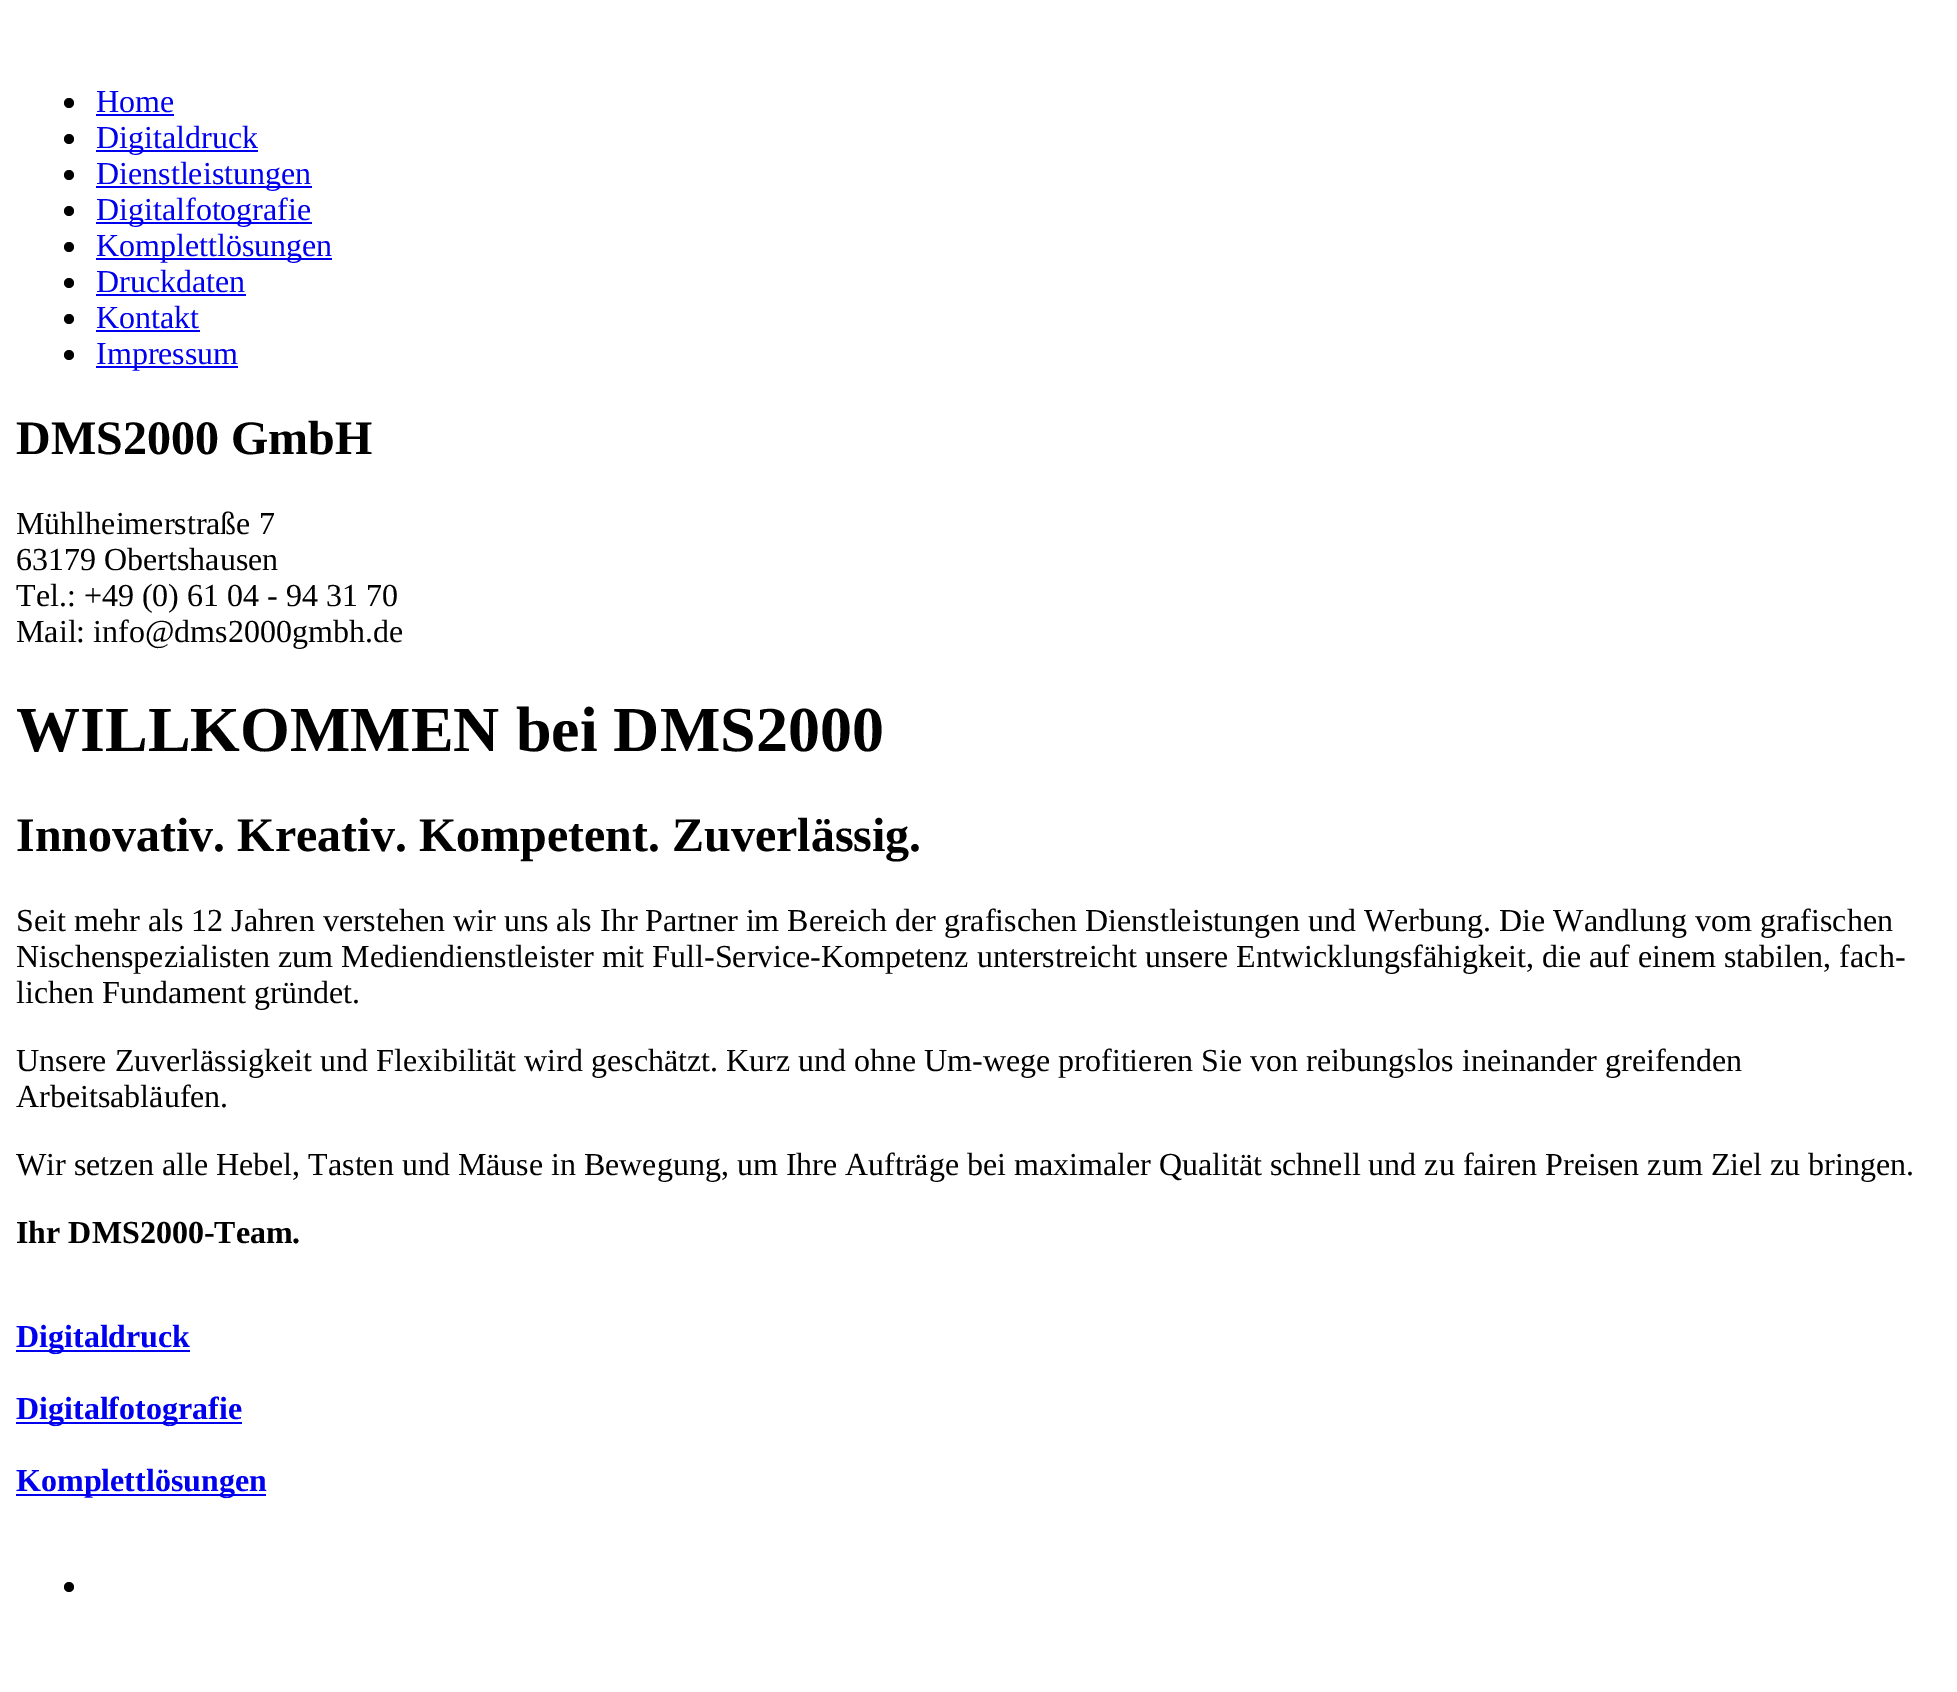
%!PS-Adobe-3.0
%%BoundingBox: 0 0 1957 1692
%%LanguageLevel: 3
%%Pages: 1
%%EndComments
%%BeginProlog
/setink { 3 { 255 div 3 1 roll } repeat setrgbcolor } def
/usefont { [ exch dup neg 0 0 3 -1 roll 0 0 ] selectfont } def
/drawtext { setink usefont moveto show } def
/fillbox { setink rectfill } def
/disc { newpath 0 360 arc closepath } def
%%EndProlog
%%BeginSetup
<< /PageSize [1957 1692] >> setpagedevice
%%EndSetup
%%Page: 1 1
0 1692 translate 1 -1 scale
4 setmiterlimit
0 0 1957 1692 255 255 255 fillbox
0 0 0 setink
69 103 5 disc fill
(Home) 96 112 /LiberationSerif-Regular 32 0 0 238 drawtext
96 114 78 2 0 0 238 fillbox
0 0 0 setink
69 139 5 disc fill
96 150 162 2 0 0 238 fillbox
(Digitaldruck) 96 148 /LiberationSerif-Regular 32 0 0 238 drawtext
0 0 0 setink
69 175 5 disc fill
96 186 216 2 0 0 238 fillbox
(Dienstleistungen) 96 184 /LiberationSerif-Regular 32 0 0 238 drawtext
0 0 0 setink
69 211 5 disc fill
96 222 216 2 0 0 238 fillbox
(Digitalfotografie) 96 220 /LiberationSerif-Regular 32 0 0 238 drawtext
0 0 0 setink
69 247 5 disc fill
96 258 236 2 0 0 238 fillbox
(Komplettlösungen) 96 256 /LiberationSerif-Regular 32 0 0 238 drawtext
0 0 0 setink
69 283 5 disc fill
(Druckdaten) 96 292 /LiberationSerif-Regular 32 0 0 238 drawtext
96 294 150 2 0 0 238 fillbox
0 0 0 setink
69 319 5 disc fill
(Kontakt) 96 328 /LiberationSerif-Regular 32 0 0 238 drawtext
96 330 104 2 0 0 238 fillbox
0 0 0 setink
69 355 5 disc fill
96 366 142 2 0 0 238 fillbox
(Impressum) 96 364 /LiberationSerif-Regular 32 0 0 238 drawtext
(DMS2000 GmbH) 16 454 /LiberationSerif-Bold 48 0 0 0 drawtext
(Mühlheimerstraße 7) 16 534 /LiberationSerif-Regular 32 0 0 0 drawtext
(63179 Obertshausen) 16 570 /LiberationSerif-Regular 32 0 0 0 drawtext
(Tel.: +49 \(0\) 61 04 - 94 31 70) 16 606 /LiberationSerif-Regular 32 0 0 0 drawtext
(Mail: info@dms2000gmbh.de) 16 642 /LiberationSerif-Regular 32 0 0 0 drawtext
(WILLKOMMEN bei DMS2000) 16 751 /LiberationSerif-Bold 64 0 0 0 drawtext
(Innovativ. Kreativ. Kompetent. Zuverlässig.) 16 851 /LiberationSerif-Bold 48 0 0 0 drawtext
(Seit mehr als 12 Jahren verstehen wir uns als Ihr Partner im Bereich der grafischen Dienstleistungen und Werbung. Die Wandlung vom grafischen) 16 931 /LiberationSerif-Regular 32 0 0 0 drawtext
(Nischenspezialisten zum Mediendienstleister mit Full-Service-Kompetenz unterstreicht unsere Entwicklungsfähigkeit, die auf einem stabilen, fach-) 16 967 /LiberationSerif-Regular 32 0 0 0 drawtext
(lichen Fundament gründet.) 16 1003 /LiberationSerif-Regular 32 0 0 0 drawtext
(Unsere Zuverlässigkeit und Flexibilität wird geschätzt. Kurz und ohne Um-wege profitieren Sie von reibungslos ineinander greifenden) 16 1071 /LiberationSerif-Regular 32 0 0 0 drawtext
(Arbeitsabläufen.) 16 1107 /LiberationSerif-Regular 32 0 0 0 drawtext
(Wir setzen alle Hebel, Tasten und Mäuse in Bewegung, um Ihre Aufträge bei maximaler Qualität schnell und zu fairen Preisen zum Ziel zu bringen.) 16 1175 /LiberationSerif-Regular 32 0 0 0 drawtext
(Ihr DMS2000-Team.) 16 1243 /LiberationSerif-Bold 32 0 0 0 drawtext
16 1350 174 2 0 0 238 fillbox
(Digitaldruck) 16 1347 /LiberationSerif-Bold 32 0 0 238 drawtext
16 1422 226 2 0 0 238 fillbox
(Digitalfotografie) 16 1419 /LiberationSerif-Bold 32 0 0 238 drawtext
16 1494 250 2 0 0 238 fillbox
(Komplettlösungen) 16 1491 /LiberationSerif-Bold 32 0 0 238 drawtext
0 0 0 setink
69 1587 5 disc fill
showpage
%%EOF
